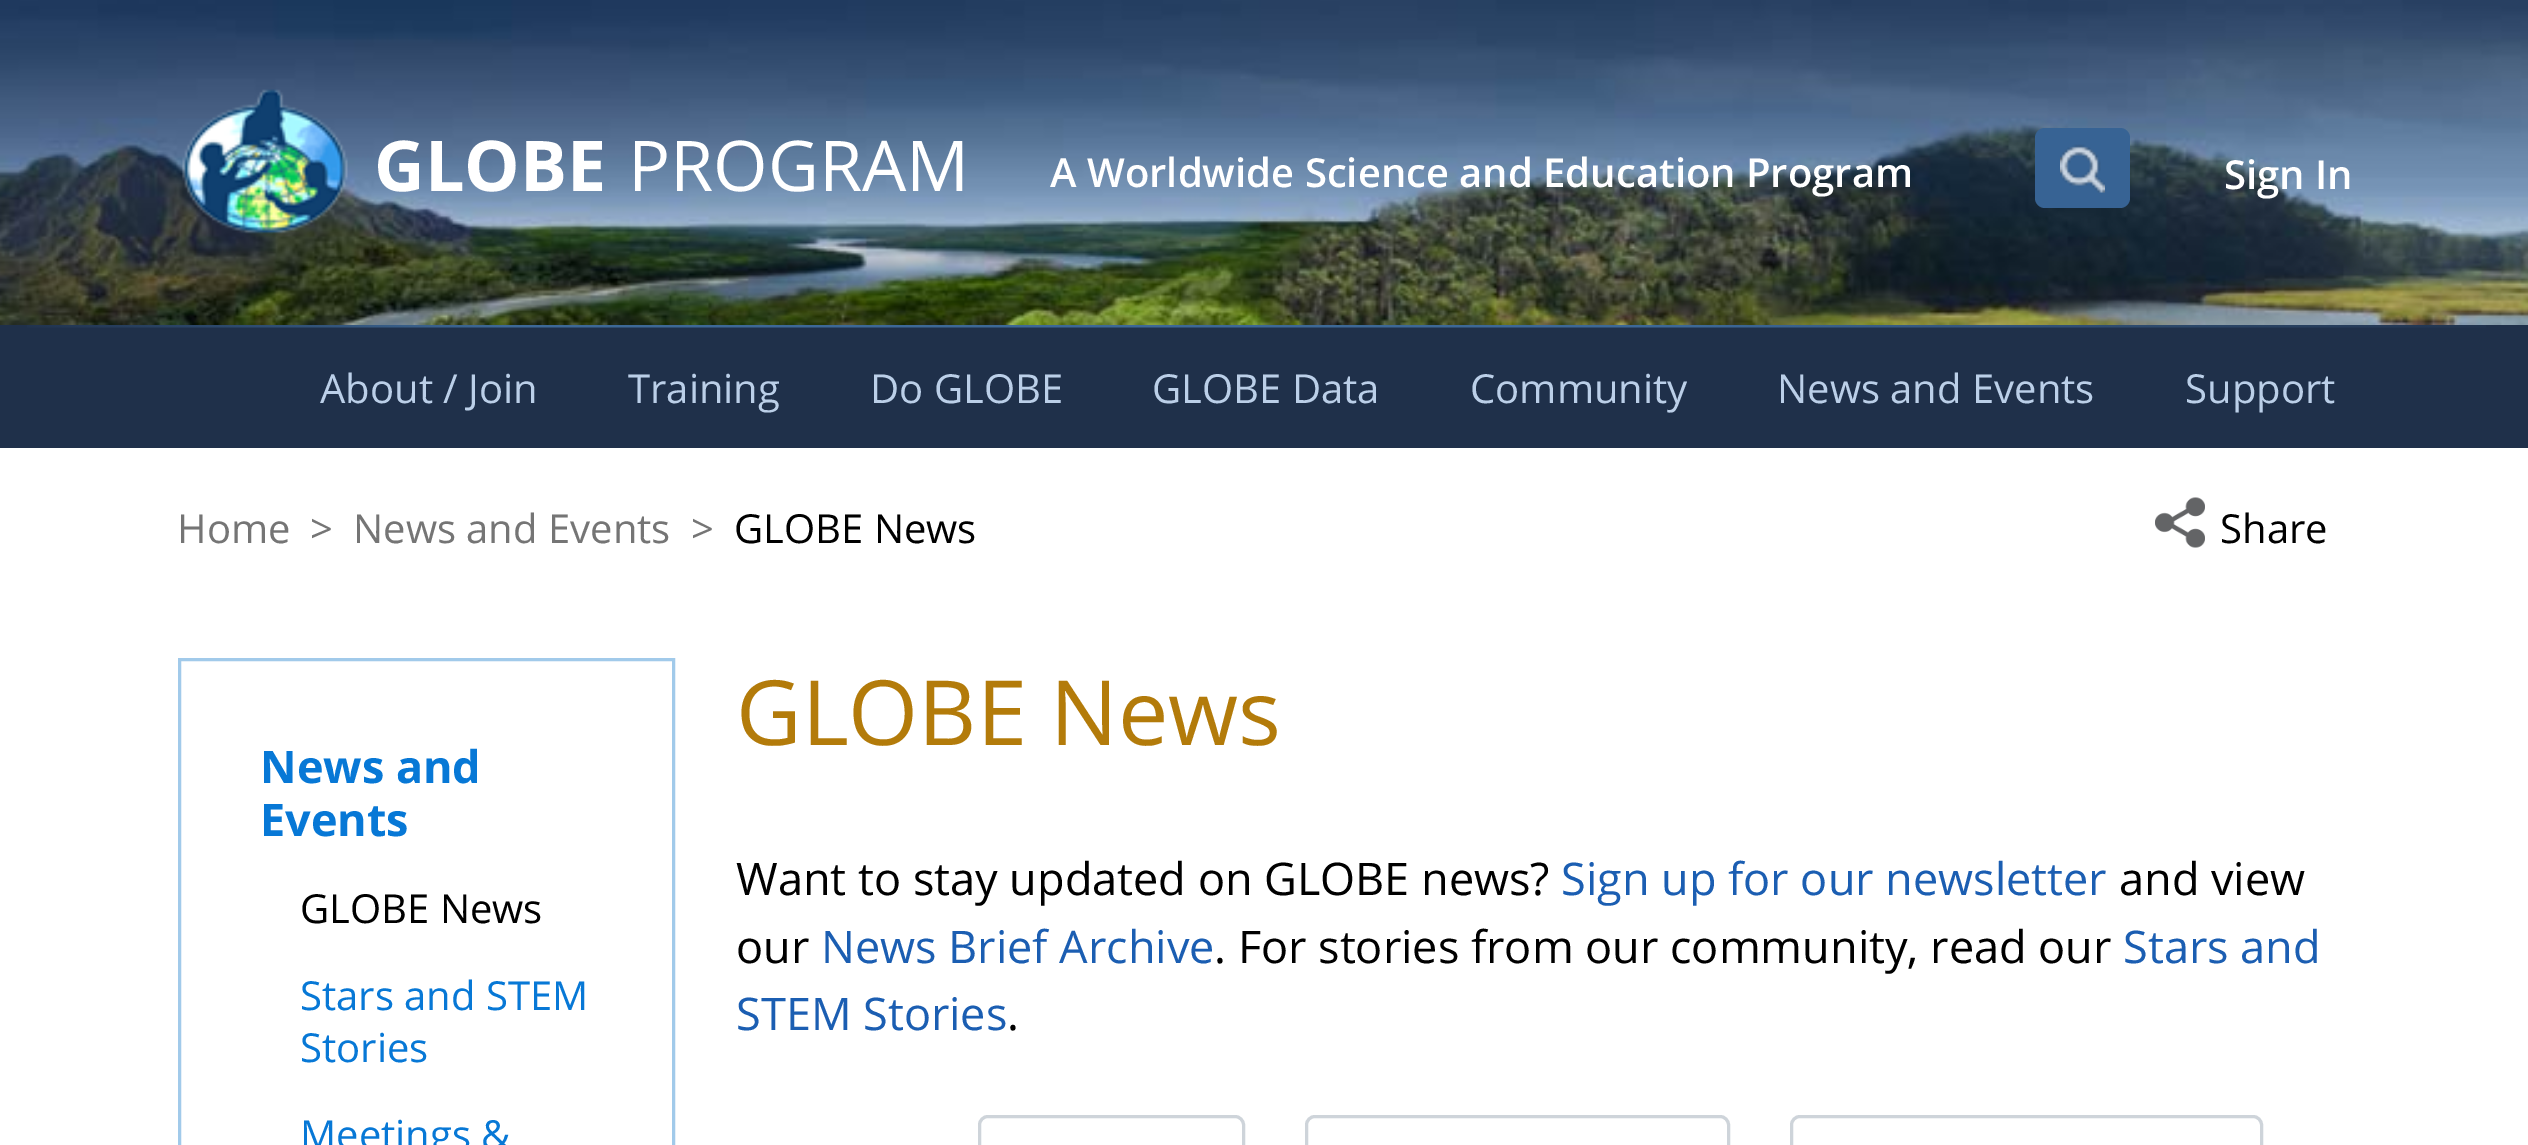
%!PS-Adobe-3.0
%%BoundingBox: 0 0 2528 1145
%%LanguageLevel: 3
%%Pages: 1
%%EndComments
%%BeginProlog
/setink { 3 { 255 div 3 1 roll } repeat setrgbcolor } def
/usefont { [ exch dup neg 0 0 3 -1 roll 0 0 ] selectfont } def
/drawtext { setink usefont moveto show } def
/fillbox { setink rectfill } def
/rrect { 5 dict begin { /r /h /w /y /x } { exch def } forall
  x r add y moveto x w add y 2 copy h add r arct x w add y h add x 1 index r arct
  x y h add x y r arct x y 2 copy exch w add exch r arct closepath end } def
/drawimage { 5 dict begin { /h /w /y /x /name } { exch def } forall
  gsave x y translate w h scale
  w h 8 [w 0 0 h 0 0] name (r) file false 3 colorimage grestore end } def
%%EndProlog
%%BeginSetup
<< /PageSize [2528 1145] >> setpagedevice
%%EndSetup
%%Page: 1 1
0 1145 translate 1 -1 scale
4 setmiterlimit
0 0 2528 1145 255 255 255 fillbox
(assets/img1.rgb) 0 0 2528 325 drawimage
(assets/img2.rgb) 182 89 166 145 drawimage
(GLOBE) 374 191 /OpenSans-Bold 70 255 255 255 drawtext
(PROGRAM) 628 191 /OpenSans-Regular 70 255 255 255 drawtext
(A Worldwide Science and Education Program) 1050 187 /OpenSans-SemiBold 40 255 255 255 drawtext
55 99 148 setink
2035 128 95 80 10 rrect fill
(assets/img3.rgb) 2060 144 45 49 drawimage
(Sign In) 2224 189 /OpenSans-SemiBold 40 255 255 255 drawtext
0 325 2528 123 31 48 74 fillbox
(assets/img4.rgb) 27 325 2459 3 drawimage
(About / Join) 320 403 /OpenSans-Regular 40 187 207 232 drawtext
(Training) 628 403 /OpenSans-Regular 40 187 207 232 drawtext
(Do GLOBE) 870 403 /OpenSans-Regular 40 187 207 232 drawtext
(GLOBE Data) 1152 403 /OpenSans-Regular 40 187 207 232 drawtext
(Community) 1470 403 /OpenSans-Regular 40 187 207 232 drawtext
(News and Events) 1777 403 /OpenSans-Regular 40 187 207 232 drawtext
(Support) 2185 403 /OpenSans-Regular 40 187 207 232 drawtext
(Home) 177 543 /OpenSans-Regular 40 117 117 117 drawtext
(>) 310 543 /OpenSans-Regular 40 117 117 117 drawtext
(News and Events) 353 543 /OpenSans-Regular 40 117 117 117 drawtext
(>) 691 543 /OpenSans-Regular 40 117 117 117 drawtext
(GLOBE News) 734 543 /OpenSans-Regular 40 0 0 0 drawtext
(assets/img5.rgb) 2155 497 50 51 drawimage
(Share) 2220 543 /OpenSans-Regular 40 0 0 0 drawtext
161 202 234 setink
3 setlinewidth
179.5 659.5 494 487 rectstroke
(News and) 260 783 /OpenSans-Bold 45 7 120 214 drawtext
(Events) 260 836 /OpenSans-Bold 45 7 120 214 drawtext
(GLOBE News) 300 923 /OpenSans-Regular 40 0 0 0 drawtext
(Stars and STEM) 300 1010 /OpenSans-Regular 40 7 120 214 drawtext
(Stories) 300 1062 /OpenSans-Regular 40 7 120 214 drawtext
(Meetings &) 300 1149 /OpenSans-Regular 40 7 120 214 drawtext
(GLOBE News) 736 745 /OpenSans-Regular 90 179 123 10 drawtext
(Want to stay updated on GLOBE news?) 736 895 /OpenSans-Regular 45 0 0 0 drawtext
(Sign up for our newsletter) 1561 895 /OpenSans-Regular 45 27 94 178 drawtext
(and view) 2119 895 /OpenSans-Regular 45 0 0 0 drawtext
(our) 736 963 /OpenSans-Regular 45 0 0 0 drawtext
(News Brief Archive) 821 963 /OpenSans-Regular 45 27 94 178 drawtext
(. For stories from our community, read our) 1214 963 /OpenSans-Regular 45 0 0 0 drawtext
(Stars and) 2123 963 /OpenSans-Regular 45 27 94 178 drawtext
(STEM Stories) 736 1030 /OpenSans-Regular 45 27 94 178 drawtext
(.) 1007 1030 /OpenSans-Regular 45 0 0 0 drawtext
206 212 218 setink
979.5 1116.5 264 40 8.5 rrect stroke
1306.5 1116.5 422 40 8.5 rrect stroke
1791.5 1116.5 470 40 8.5 rrect stroke
showpage
%%EOF
